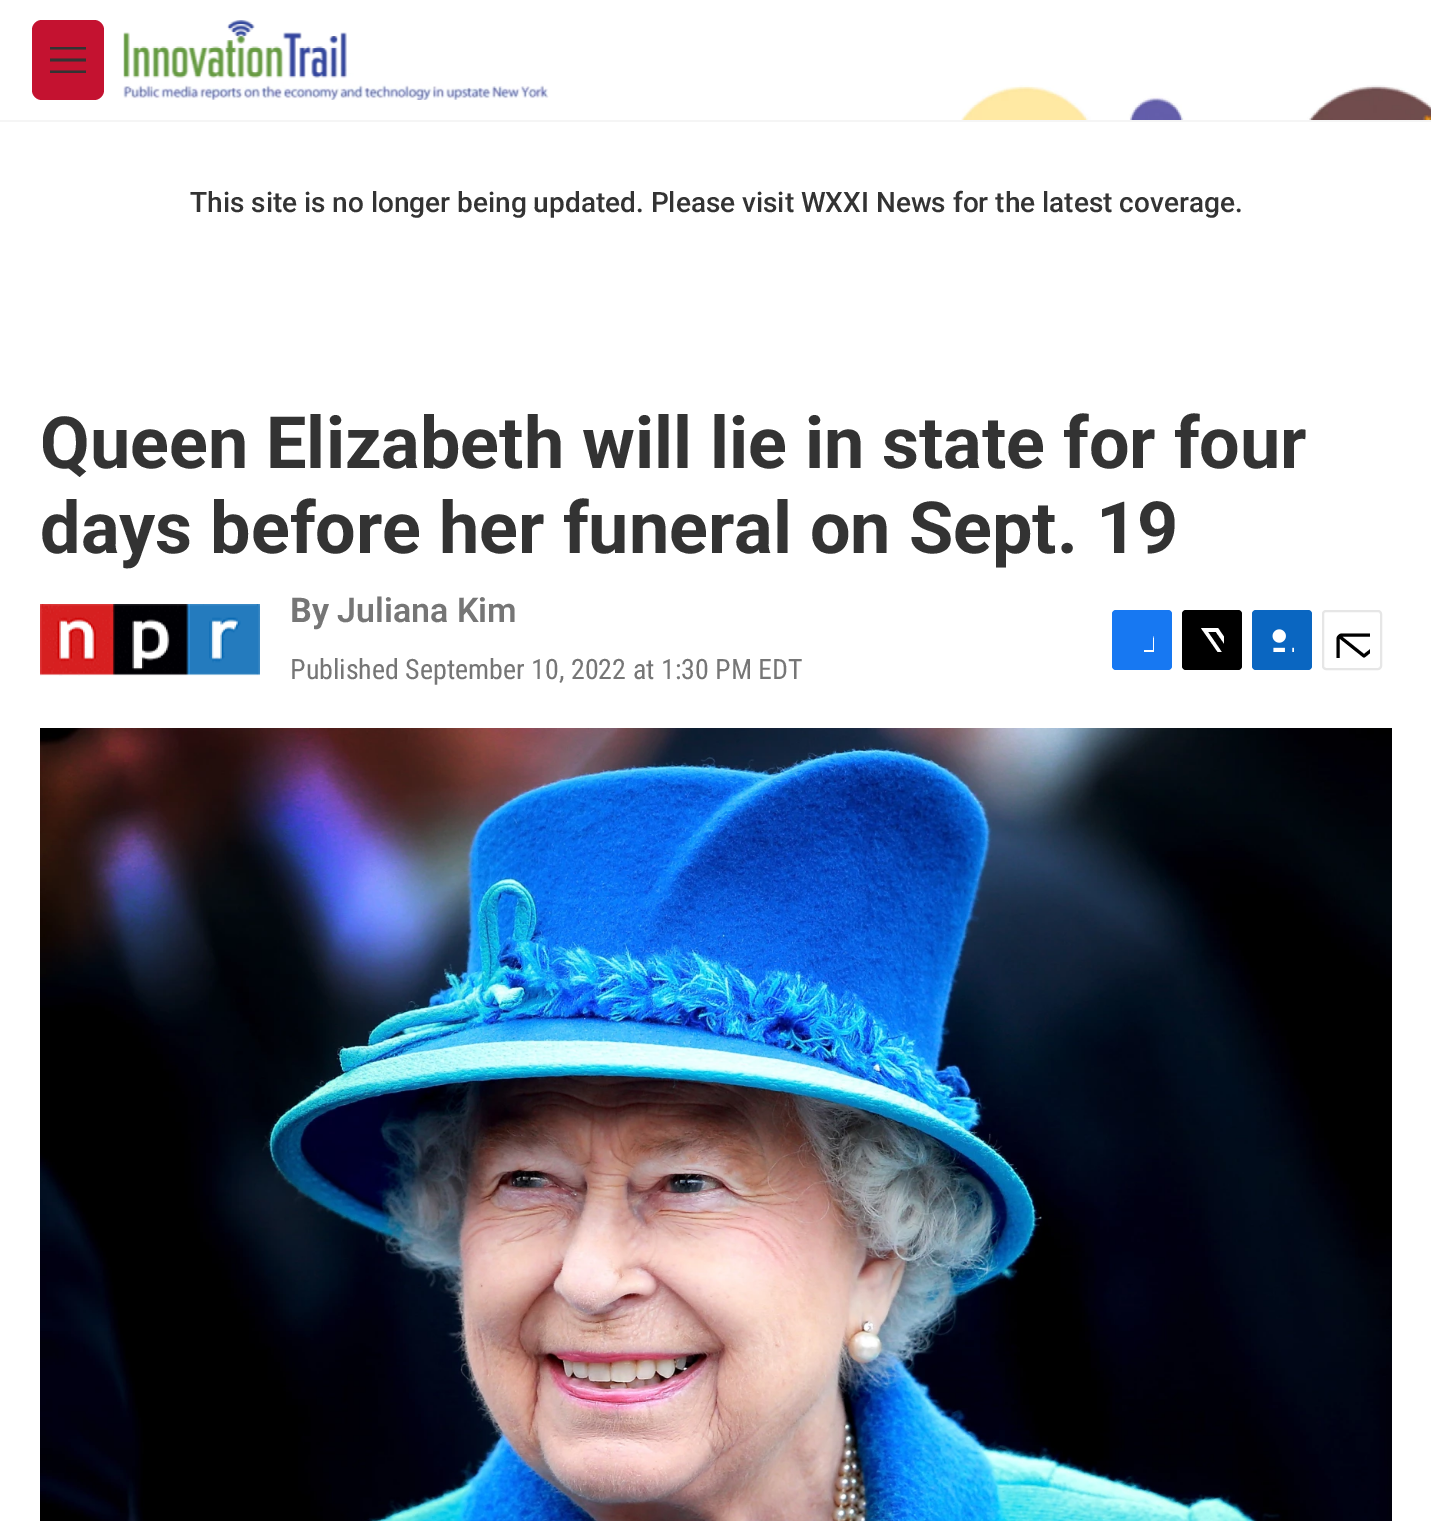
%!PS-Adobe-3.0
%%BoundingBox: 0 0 1431 1521
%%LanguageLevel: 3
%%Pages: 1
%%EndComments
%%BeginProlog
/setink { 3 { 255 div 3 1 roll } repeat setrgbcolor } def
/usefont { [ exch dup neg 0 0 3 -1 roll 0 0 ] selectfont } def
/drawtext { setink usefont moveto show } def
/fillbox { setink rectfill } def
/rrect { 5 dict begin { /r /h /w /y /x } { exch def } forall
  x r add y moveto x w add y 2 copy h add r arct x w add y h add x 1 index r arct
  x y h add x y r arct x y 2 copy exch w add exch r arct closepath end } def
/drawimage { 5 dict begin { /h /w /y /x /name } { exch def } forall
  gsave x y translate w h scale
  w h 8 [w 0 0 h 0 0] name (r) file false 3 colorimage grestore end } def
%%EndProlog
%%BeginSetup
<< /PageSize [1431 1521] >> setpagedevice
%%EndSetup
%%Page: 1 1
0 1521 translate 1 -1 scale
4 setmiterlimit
0 0 1431 1521 255 255 255 fillbox
0 120 1431 2 245 245 245 fillbox
196 18 48 setink
32 20 72 80 10 rrect fill
51 51 51 setink
50 61.5 moveto 50 58.5 lineto 86 58.5 lineto 86 61.5 lineto closepath 50 49.5 moveto 50 47 lineto 86 47 lineto 86 49.5 lineto closepath 50 73 moveto 50 70.5 lineto 86 70.5 lineto 86 73 lineto closepath eofill
(assets/img1.rgb) 123 20 426 80 drawimage
(assets/img2.rgb) 961 85 470 35 drawimage
(This site is no longer being updated. Please visit WXXI News for the latest coverage.) 190 212 /Roboto-Medium 28 51 51 51 drawtext
(Queen Elizabeth will lie in state for four) 40 468 /Roboto-Bold 72 51 51 51 drawtext
(days before her funeral on Sept. 19) 40 553 /Roboto-Bold 72 51 51 51 drawtext
(assets/img3.rgb) 40 604 220 72 drawimage
(By) 290 622 /Roboto-Bold 34 118 118 118 drawtext
(Juliana Kim) 337 622 /Roboto-SemiBold 34 118 118 118 drawtext
(Published September 10, 2022 at 1:30 PM EDT) 290 679 /RobotoCondensed-Regular 28 118 118 118 drawtext
23 120 242 setink
1112 610 60 60 4 rrect fill
gsave
1130 628 24 24 rectclip
255 255 255 setink
1163 670 moveto 1153 670 lineto 1153 660 lineto 1144 660 lineto 1144 650 lineto 1153 650 lineto 1153 639 lineto 1155 630 1164 628 1172 629 curveto 1172 638 lineto 1161 638 1163 641 1163 650 curveto 1172 650 lineto 1172 655 lineto 1171 660 lineto 1163 660 lineto closepath fill
grestore
0 0 0 setink
1182 610 60 60 4 rrect fill
gsave
1200 628 24 24 rectclip
255 255 255 setink
1236 653 moveto 1242 662 lineto 1242 664 1243 667 1241 668 curveto 1216 632 lineto 1208 632 lineto 1234 670 lineto 1229 670 lineto 1226 665 lineto 1222 670 lineto 1216 670 lineto 1224 661 lineto 1201 628 lineto 1218 628 lineto 1233 650 lineto 1242 640 lineto 1242 646 lineto closepath fill
grestore
10 102 193 setink
1252 610 60 60 4 rrect fill
(assets/img4.rgb) 1272 629 22 23 drawimage
230 230 230 setink
2 setlinewidth
1323 611 58 58 3 rrect stroke
gsave
1334 622 36 36 rectclip
0 0 0 setink
3 setlinewidth
1 setlinecap
1 setlinejoin
1390 666 moveto 1390 668 1388 669.5 1386 669.5 curveto 1342 669.5 lineto 1340 669.5 1338 668 1338 666 curveto 1338 639 lineto 1338 637 1340 635 1342 635 curveto 1386 635 lineto 1388 635 1390 637 1390 639 curveto closepath 1388.5 636.5 moveto 1364 656 lineto 1339.5 636.5 lineto stroke
grestore
(assets/img5.rgb) 40 728 1352 793 drawimage
showpage
%%EOF
